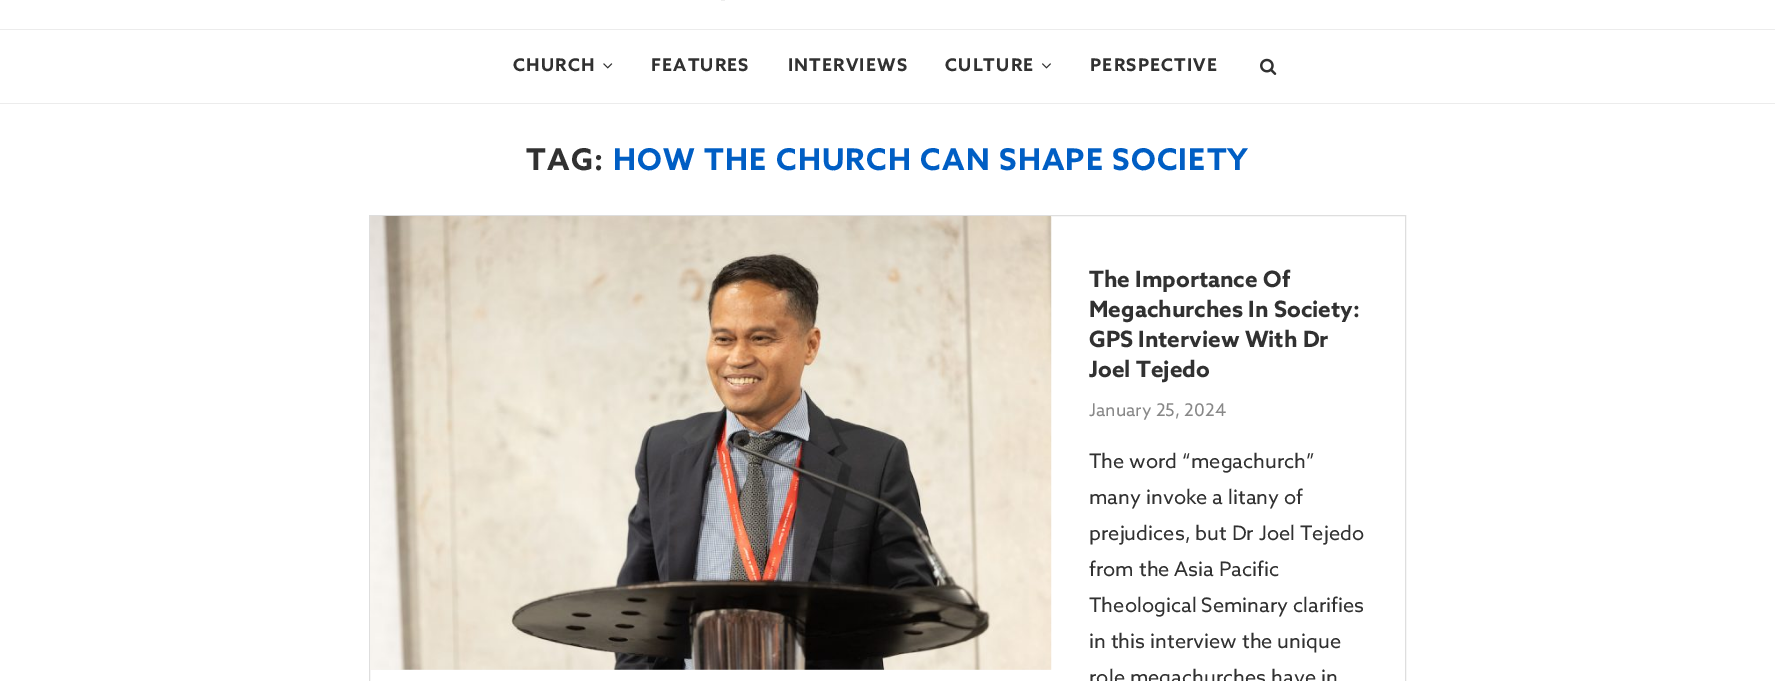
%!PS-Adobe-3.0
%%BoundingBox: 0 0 1775 681
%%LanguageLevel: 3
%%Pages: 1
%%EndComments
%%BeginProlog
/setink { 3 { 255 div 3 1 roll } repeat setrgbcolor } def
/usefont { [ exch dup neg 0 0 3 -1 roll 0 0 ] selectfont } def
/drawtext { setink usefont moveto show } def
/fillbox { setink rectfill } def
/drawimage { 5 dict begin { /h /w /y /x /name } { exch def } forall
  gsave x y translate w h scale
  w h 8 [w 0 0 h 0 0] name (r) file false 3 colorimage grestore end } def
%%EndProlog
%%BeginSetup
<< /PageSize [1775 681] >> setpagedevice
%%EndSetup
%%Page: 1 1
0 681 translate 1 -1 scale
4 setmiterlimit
0 0 1775 681 255 255 255 fillbox
721 0 4 1 238 238 238 fillbox
0 29 1775 1 236 236 236 fillbox
0 103 1775 1 236 236 236 fillbox
/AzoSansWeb-Bold 17.5 usefont
49 49 49 setink
513 71 moveto 1.25 0 (CHURCH) ashow
(assets/img1.rgb) 603 63 10 6 drawimage
651 71 moveto 1.25 0 (FEATURES) ashow
788 71 moveto 1.25 0 (INTERVIEWS) ashow
945 71 moveto 1.25 0 (CULTURE) ashow
(assets/img2.rgb) 1042 63 9 6 drawimage
1090 71 moveto 1.25 0 (PERSPECTIVE) ashow
(assets/img3.rgb) 1260 58 17 17 drawimage
/AzoSansWeb-Bold 30 usefont
526 170 moveto 1.25 0 (TAG:) ashow
0 94 196 setink
613 170 moveto 1.25 0 (HOW THE CHURCH CAN SHAPE SOCIETY) ashow
222 222 222 setink
369.5 215.5 1036 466 rectstroke
(assets/img4.rgb) 370 216 682 454 drawimage
(The Importance Of) 1089 287 /AzoSansWeb-Bold 22.5 49 49 49 drawtext
(Megachurches In Society:) 1089 317 /AzoSansWeb-Bold 22.5 49 49 49 drawtext
(GPS Interview With Dr) 1089 347 /AzoSansWeb-Bold 22.5 49 49 49 drawtext
(Joel Tejedo) 1089 377 /AzoSansWeb-Bold 22.5 49 49 49 drawtext
(January 25, 2024) 1089 416 /AzoSansWeb-Regular 17.5 136 136 136 drawtext
(The word “megachurch”) 1089 468 /AzoSansWeb-Regular 20 49 49 49 drawtext
(many invoke a litany of) 1089 504 /AzoSansWeb-Regular 20 49 49 49 drawtext
(prejudices, but Dr Joel Tejedo) 1089 540 /AzoSansWeb-Regular 20 49 49 49 drawtext
(from the Asia Pacific) 1089 576 /AzoSansWeb-Regular 20 49 49 49 drawtext
(Theological Seminary clarifies) 1089 612 /AzoSansWeb-Regular 20 49 49 49 drawtext
(in this interview the unique) 1089 648 /AzoSansWeb-Regular 20 49 49 49 drawtext
(role megachurches have in) 1089 684 /AzoSansWeb-Regular 20 49 49 49 drawtext
showpage
%%EOF
